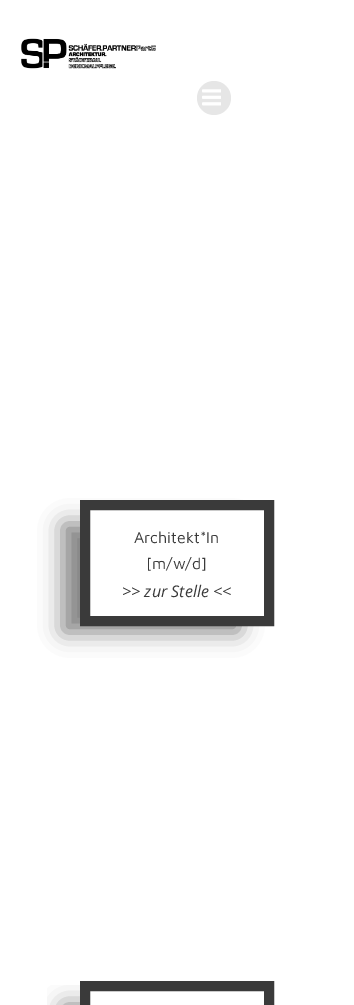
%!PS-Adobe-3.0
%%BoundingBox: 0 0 354 1005
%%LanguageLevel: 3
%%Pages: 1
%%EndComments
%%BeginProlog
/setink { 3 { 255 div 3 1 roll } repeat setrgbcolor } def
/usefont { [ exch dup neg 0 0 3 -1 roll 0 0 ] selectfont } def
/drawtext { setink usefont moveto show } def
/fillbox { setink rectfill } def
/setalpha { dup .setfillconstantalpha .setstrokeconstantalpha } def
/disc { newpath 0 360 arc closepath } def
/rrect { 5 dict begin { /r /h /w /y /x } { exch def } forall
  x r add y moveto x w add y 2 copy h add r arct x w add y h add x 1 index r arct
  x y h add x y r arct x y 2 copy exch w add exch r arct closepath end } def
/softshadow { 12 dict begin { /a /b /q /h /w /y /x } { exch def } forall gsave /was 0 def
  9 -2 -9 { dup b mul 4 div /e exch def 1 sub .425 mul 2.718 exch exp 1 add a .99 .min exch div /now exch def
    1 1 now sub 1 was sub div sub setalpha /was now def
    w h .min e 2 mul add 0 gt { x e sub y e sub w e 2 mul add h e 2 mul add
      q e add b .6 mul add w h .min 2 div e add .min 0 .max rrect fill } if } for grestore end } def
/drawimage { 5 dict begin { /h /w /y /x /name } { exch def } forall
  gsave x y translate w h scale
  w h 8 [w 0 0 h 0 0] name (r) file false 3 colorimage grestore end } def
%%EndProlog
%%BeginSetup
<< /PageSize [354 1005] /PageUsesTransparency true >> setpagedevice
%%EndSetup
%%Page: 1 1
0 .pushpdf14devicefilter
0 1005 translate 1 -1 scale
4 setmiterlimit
0 0 354 1005 255 255 255 fillbox
(assets/img1.rgb) 21 38 135 31 drawimage
230 230 230 setink
214 98 17 disc fill
(assets/img2.rgb) 202 89 19 17 drawimage
gsave
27 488 moveto 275 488 lineto 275 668 lineto 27 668 lineto closepath 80 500 moveto 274 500 lineto 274 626 lineto 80 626 lineto closepath eoclip newpath
0 0 0 setink
63 524 176 108 0 11.5 0.5 softshadow
grestore
58 58 58 setink
10 setlinewidth
85 505 184 116 rectstroke
(Architekt*In) 134 543 /MavenPro-Regular 16 58 58 58 drawtext
([m/w/d]) 146 569 /MavenPro-Regular 16 58 58 58 drawtext
(>> zur Stelle <<) 122 597 /OpenSans-Italic 16 58 58 58 drawtext
gsave
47 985 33 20 rectclip
0 0 0 setink
63 1005 176 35 0 11.5 0.5 softshadow
grestore
85 986 184 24 rectstroke
.poppdf14devicefilter showpage
%%EOF
